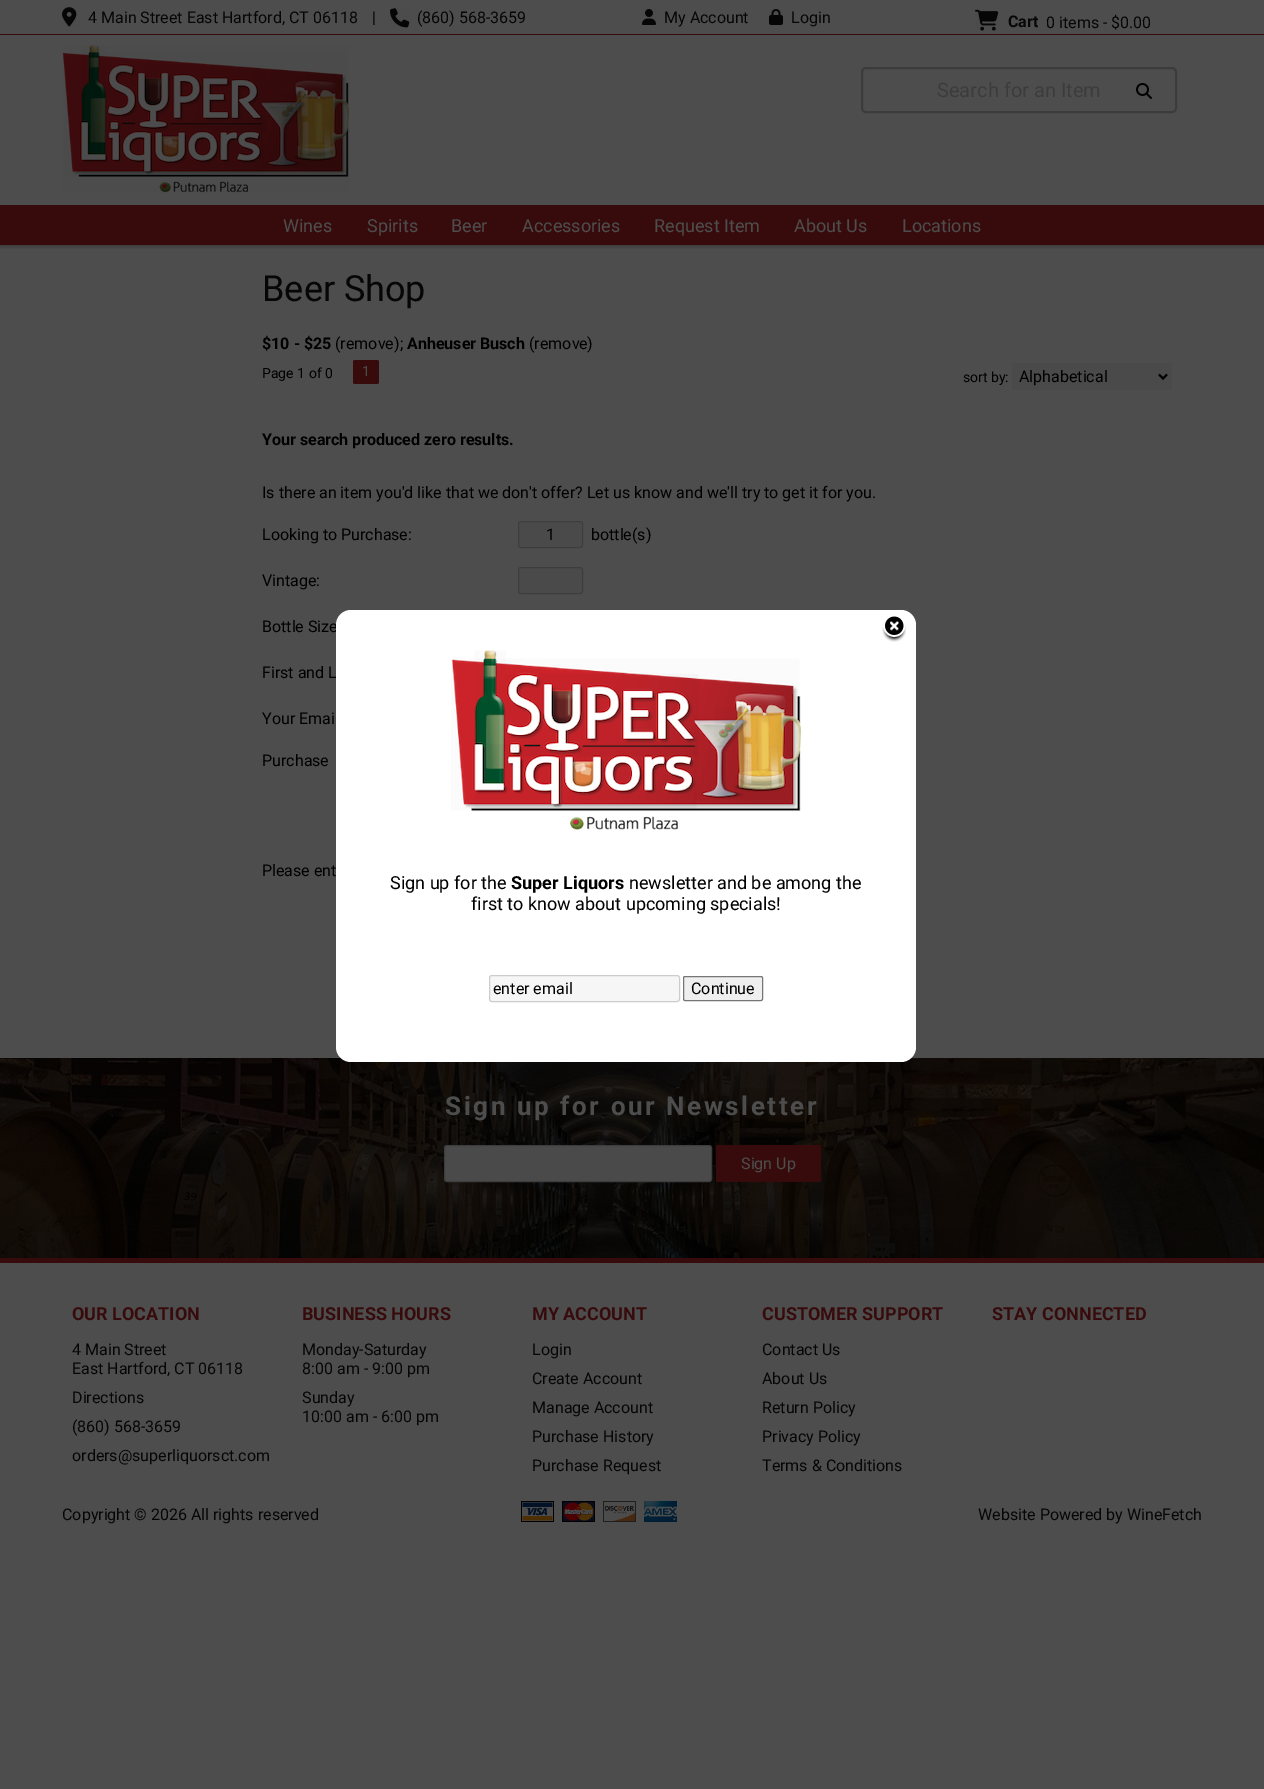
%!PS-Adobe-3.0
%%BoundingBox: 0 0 1264 1789
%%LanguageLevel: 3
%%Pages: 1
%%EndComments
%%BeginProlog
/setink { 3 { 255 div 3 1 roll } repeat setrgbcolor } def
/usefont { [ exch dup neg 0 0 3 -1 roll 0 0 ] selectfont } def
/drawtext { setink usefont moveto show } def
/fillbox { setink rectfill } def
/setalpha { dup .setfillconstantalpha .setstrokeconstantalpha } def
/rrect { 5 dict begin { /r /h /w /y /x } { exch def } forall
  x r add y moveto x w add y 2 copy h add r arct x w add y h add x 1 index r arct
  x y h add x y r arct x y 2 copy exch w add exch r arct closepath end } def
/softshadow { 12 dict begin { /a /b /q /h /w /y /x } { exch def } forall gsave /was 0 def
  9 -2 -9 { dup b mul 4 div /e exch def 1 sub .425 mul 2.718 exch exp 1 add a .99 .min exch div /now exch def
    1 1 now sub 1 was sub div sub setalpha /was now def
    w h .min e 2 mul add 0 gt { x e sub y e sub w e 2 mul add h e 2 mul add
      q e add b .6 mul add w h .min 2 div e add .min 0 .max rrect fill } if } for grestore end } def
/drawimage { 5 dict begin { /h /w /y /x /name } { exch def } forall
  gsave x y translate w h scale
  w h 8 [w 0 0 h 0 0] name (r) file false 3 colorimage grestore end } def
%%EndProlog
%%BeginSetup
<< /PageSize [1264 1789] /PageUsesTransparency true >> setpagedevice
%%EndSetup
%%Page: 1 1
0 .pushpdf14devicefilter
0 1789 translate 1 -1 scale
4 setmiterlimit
0 0 1264 1789 77 77 77 fillbox
0 34 1264 1 55 11 12 fillbox
(assets/img1.rgb) 62 7 15 20 drawimage
(4 Main Street East Hartford, CT 06118) 88 23 /Roboto-Regular 16 6 6 6 drawtext
(|) 372 23 /Roboto-Regular 16 6 6 6 drawtext
(assets/img2.rgb) 390 8 20 20 drawimage
(\(860\) 568-3659) 417 23 /Roboto-Regular 16 6 6 6 drawtext
gsave
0 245 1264 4 rectclip
7 7 7 setink
0 37 1264 210 0 1.5 0.24 softshadow
grestore
(assets/img3.rgb) 642 9 14 16 drawimage
(My Account) 664 23 /Roboto-Regular 16 6 6 6 drawtext
(assets/img4.rgb) 769 9 14 16 drawimage
(Login) 791 23 /Roboto-Regular 16 6 6 6 drawtext
(assets/img5.rgb) 975 9 24 22 drawimage
(Cart) 1008 27 /Roboto-Bold 16 6 6 6 drawtext
(0 items - $0.00) 1046 28 /Roboto-Regular 16 6 6 6 drawtext
(assets/img6.rgb) 62 45 287 148 drawimage
60 60 60 setink
2 setlinewidth
862 68 314 44 4 rrect stroke
(Search for an Item) 937 97 /Roboto-Regular 20 60 60 60 drawtext
(assets/img7.rgb) 1136 83 16 16 drawimage
0 205 1264 40 55 11 12 fillbox
(Wines) 283 232 /Roboto-Regular 18 77 77 77 drawtext
(Spirits) 367 232 /Roboto-Regular 18 77 77 77 drawtext
(Beer) 451 232 /Roboto-Regular 18 77 77 77 drawtext
(Accessories) 522 232 /Roboto-Regular 18 77 77 77 drawtext
(Request Item) 654 232 /Roboto-Regular 18 77 77 77 drawtext
(About Us) 794 232 /Roboto-Regular 18 77 77 77 drawtext
(Locations) 902 232 /Roboto-Regular 18 77 77 77 drawtext
(Beer Shop) 262 301 /Roboto-Regular 36 6 6 6 drawtext
($10 - $25) 262 349 /Roboto-Bold 16 0 0 0 drawtext
(\(remove) 335 349 /Roboto-Regular 16 0 0 0 drawtext
(\);) 394 349 /Roboto-Regular 16 0 0 0 drawtext
(Anheuser Busch) 407 349 /Roboto-Bold 16 0 0 0 drawtext
(\(remove) 529 349 /Roboto-Regular 16 0 0 0 drawtext
(\)) 587 349 /Roboto-Regular 16 0 0 0 drawtext
(Page 1 of 0) 262 378 /Roboto-Regular 14 0 0 0 drawtext
55 11 12 setink
353 360 26 24 2 rrect fill
(1) 362 376 /Roboto-Regular 14 77 77 77 drawtext
(sort by:) 963 382 /Roboto-Regular 14 0 0 0 drawtext
1012 363 160 27 74 74 74 fillbox
0 0 0 setink
1159 374.5 moveto 1163 378.5 lineto 1167 374.5 lineto stroke
(Alphabetical) 1019 382 /Roboto-Regular 16 0 0 0 drawtext
(Your search produced zero results.) 262 445 /Roboto-Bold 16 0 0 0 drawtext
(Is there an item you'd like that we don't offer? Let us know and we'll try to get it for you.) 262 498 /Roboto-Regular 16 0 0 0 drawtext
(Looking to Purchase:) 262 540 /Roboto-Regular 16 0 0 0 drawtext
74 74 74 setink
518.5 521.5 64 26 2.5 rrect gsave fill grestore
61 61 61 setink
1 setlinewidth
stroke
(1) 546 540 /Roboto-Regular 16 0 0 0 drawtext
(bottle\(s\)) 591 540 /Roboto-Regular 16 0 0 0 drawtext
(Vintage:) 262 586 /Roboto-Regular 16 0 0 0 drawtext
74 74 74 setink
518.5 567.5 64 26 2.5 rrect gsave fill grestore
61 61 61 setink
stroke
(Bottle Size) 262 632 /Roboto-Regular 16 0 0 0 drawtext
(First and L) 262 678 /Roboto-Regular 16 0 0 0 drawtext
(Your Emai) 262 724 /Roboto-Regular 16 0 0 0 drawtext
(Purchase) 262 766 /Roboto-Regular 16 0 0 0 drawtext
(Please ent) 262 876 /Roboto-Regular 16 0 0 0 drawtext
(assets/img10.rgb) 0 1058 1264 200 drawimage
255 255 255 setink
336 610 580 452 15 rrect fill
(assets/img8.rgb) 882 616 24 26 drawimage
(assets/img9.rgb) 451 650 350 180 drawimage
(Sign up for the) 390 889 /Roboto-Regular 18 0 0 0 drawtext
(Super Liquors) 511 889 /Roboto-Bold 18 0 0 0 drawtext
(newsletter and be among the) 629 889 /Roboto-Regular 18 0 0 0 drawtext
(first to know about upcoming specials!) 471 910 /Roboto-Regular 18 0 0 0 drawtext
246 246 246 setink
489.5 975.5 190 26 2.5 rrect gsave fill grestore
204 204 204 setink
stroke
(enter email) 493 994 /Roboto-Regular 16 0 0 0 drawtext
239 239 239 setink
683.5 976.5 79 24 1.5 rrect gsave fill grestore
118 118 118 setink
stroke
(Continue) 691 994 /Roboto-Regular 16 0 0 0 drawtext
/Roboto-Bold 26 usefont
77 77 77 setink
445 1115 moveto 2.6 0 (Sign up for our Newsletter) ashow
74 74 74 setink
444.5 1145.5 267 36 2.5 rrect gsave fill grestore
61 61 61 setink
stroke
716 1145 105 37 55 11 12 fillbox
(Sign Up) 741 1169 /Roboto-Regular 16 77 77 77 drawtext
0 1258 1264 5 55 11 12 fillbox
(OUR LOCATION) 72 1320 /Roboto-Bold 18 55 11 12 drawtext
(4 Main Street) 72 1355 /Roboto-Regular 16 6 6 6 drawtext
(East Hartford, CT 06118) 72 1374 /Roboto-Regular 16 6 6 6 drawtext
(Directions) 72 1403 /Roboto-Regular 16 6 6 6 drawtext
(\(860\) 568-3659) 72 1432 /Roboto-Regular 16 6 6 6 drawtext
(orders@superliquorsct.com) 72 1461 /Roboto-Regular 16 6 6 6 drawtext
(BUSINESS HOURS) 302 1320 /Roboto-Bold 18 55 11 12 drawtext
(Monday-Saturday) 302 1355 /Roboto-Regular 16 6 6 6 drawtext
(8:00 am - 9:00 pm) 302 1374 /Roboto-Regular 16 6 6 6 drawtext
(Sunday) 302 1403 /Roboto-Regular 16 6 6 6 drawtext
(10:00 am - 6:00 pm) 302 1422 /Roboto-Regular 16 6 6 6 drawtext
(MY ACCOUNT) 532 1320 /Roboto-Bold 18 55 11 12 drawtext
(Login) 532 1355 /Roboto-Regular 16 6 6 6 drawtext
(Create Account) 532 1384 /Roboto-Regular 16 6 6 6 drawtext
(Manage Account) 532 1413 /Roboto-Regular 16 6 6 6 drawtext
(Purchase History) 532 1442 /Roboto-Regular 16 6 6 6 drawtext
(Purchase Request) 532 1471 /Roboto-Regular 16 6 6 6 drawtext
(CUSTOMER SUPPORT) 762 1320 /Roboto-Bold 18 55 11 12 drawtext
(Contact Us) 762 1355 /Roboto-Regular 16 6 6 6 drawtext
(About Us) 762 1384 /Roboto-Regular 16 6 6 6 drawtext
(Return Policy) 762 1413 /Roboto-Regular 16 6 6 6 drawtext
(Privacy Policy) 762 1442 /Roboto-Regular 16 6 6 6 drawtext
(Terms & Conditions) 762 1471 /Roboto-Regular 16 6 6 6 drawtext
(STAY CONNECTED) 992 1320 /Roboto-Bold 18 55 11 12 drawtext
(Copyright © 2026 All rights reserved) 62 1520 /Roboto-Regular 16 6 6 6 drawtext
(assets/img11.rgb) 521 1501 33 21 drawimage
(assets/img12.rgb) 562 1501 33 21 drawimage
(assets/img13.rgb) 603 1501 33 21 drawimage
(assets/img14.rgb) 644 1501 33 21 drawimage
(Website Powered by WineFetch) 978 1520 /Roboto-Regular 16 6 6 6 drawtext
.poppdf14devicefilter showpage
%%EOF
